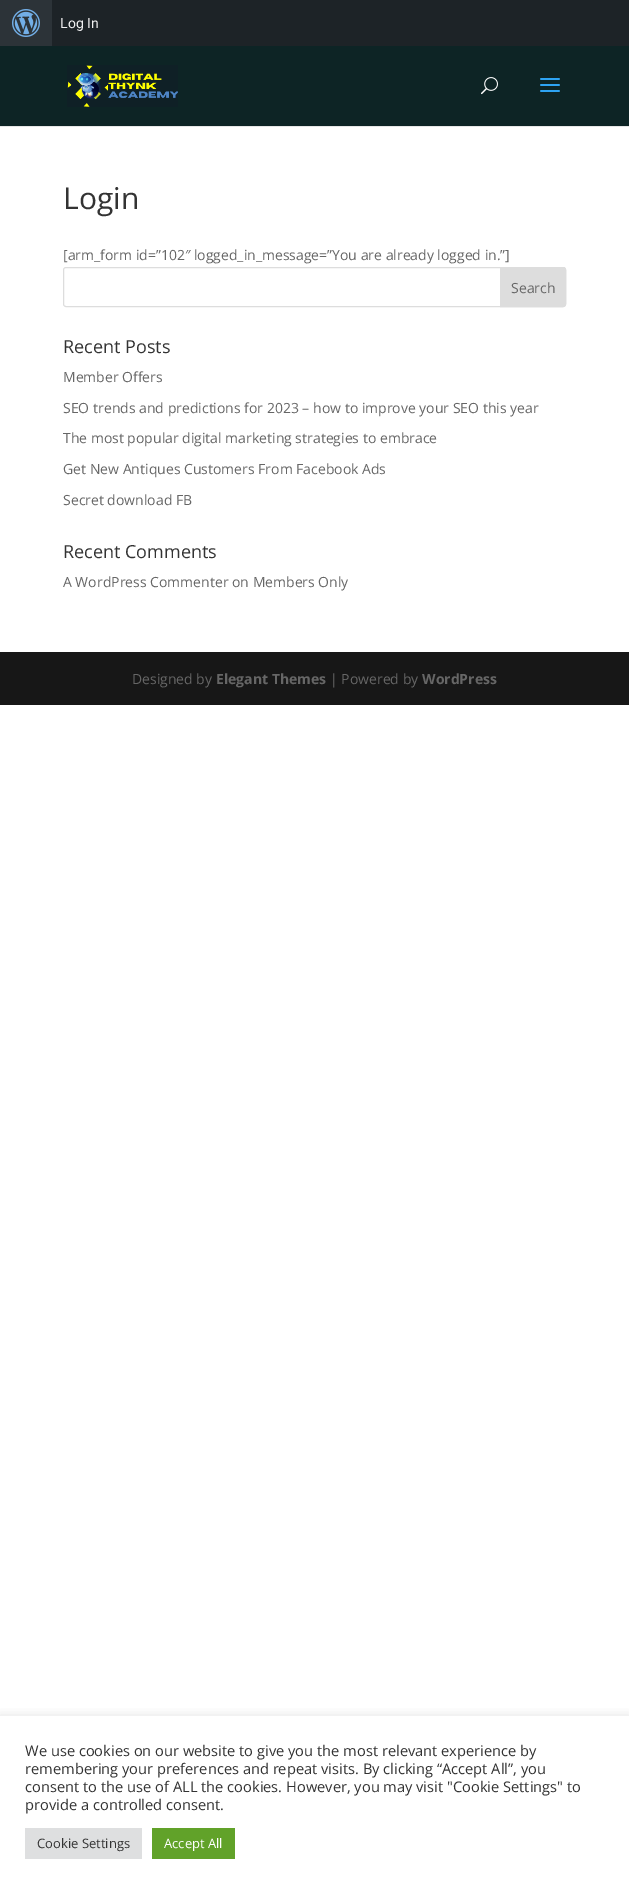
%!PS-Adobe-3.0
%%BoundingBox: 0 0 629 1889
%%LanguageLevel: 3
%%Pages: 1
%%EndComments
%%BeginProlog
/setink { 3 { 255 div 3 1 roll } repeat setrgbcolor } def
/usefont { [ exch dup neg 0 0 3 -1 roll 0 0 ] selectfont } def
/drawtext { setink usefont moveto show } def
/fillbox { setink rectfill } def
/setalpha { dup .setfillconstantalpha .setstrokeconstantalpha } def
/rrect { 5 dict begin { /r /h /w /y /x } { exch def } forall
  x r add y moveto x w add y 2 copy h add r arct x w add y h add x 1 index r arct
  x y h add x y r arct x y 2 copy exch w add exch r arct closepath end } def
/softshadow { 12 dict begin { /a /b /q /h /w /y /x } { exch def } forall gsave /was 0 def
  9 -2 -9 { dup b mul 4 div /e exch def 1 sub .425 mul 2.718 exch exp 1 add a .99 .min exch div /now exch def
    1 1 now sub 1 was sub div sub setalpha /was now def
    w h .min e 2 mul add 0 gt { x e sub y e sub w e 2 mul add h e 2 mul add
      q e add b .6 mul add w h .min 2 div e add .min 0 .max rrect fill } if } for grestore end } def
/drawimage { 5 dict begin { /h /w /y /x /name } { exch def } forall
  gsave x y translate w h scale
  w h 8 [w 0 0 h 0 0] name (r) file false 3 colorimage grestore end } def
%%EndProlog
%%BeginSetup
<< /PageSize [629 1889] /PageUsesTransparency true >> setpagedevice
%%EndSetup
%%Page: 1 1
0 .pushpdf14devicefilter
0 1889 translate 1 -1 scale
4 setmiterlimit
0 0 629 1889 255 255 255 fillbox
52 0 577 46 29 35 39 fillbox
0 0 52 46 44 51 56 fillbox
(assets/img1.rgb) 12 9 28 28 drawimage
(Log In) 60 28 /Roboto-Regular 14 240 240 241 drawtext
0 126 629 1 230 230 230 fillbox
0 46 629 80 13 36 37 fillbox
(assets/img2.rgb) 67 65 111 42 drawimage
(assets/img3.rgb) 481 77 17 18 drawimage
(assets/img4.rgb) 540 78 20 14 drawimage
(Login) 63 209 /OpenSans-Regular 30 51 51 51 drawtext
([arm_form id=”102″ logged_in_message=”You are already logged in.”]) 63 260 /OpenSans-Regular 14 102 102 102 drawtext
221 221 221 setink
63.5 267.5 502 39 2.5 rrect stroke
500.5 267.5 moveto 563 267.5 lineto 564.5 267.5 565.5 268.5 565.5 270 curveto 565.5 304 lineto 565.5 305.5 564.5 306.5 563 306.5 curveto 500.5 306.5 lineto closepath gsave fill grestore
stroke
(Search) 511 293 /OpenSans-Regular 14 102 102 102 drawtext
(Recent Posts) 63 353 /OpenSans-Regular 18 51 51 51 drawtext
(Member Offers) 63 382 /OpenSans-Regular 14 102 102 102 drawtext
(SEO trends and predictions for 2023 – how to improve your SEO this year) 63 413 /OpenSans-Regular 14 102 102 102 drawtext
(The most popular digital marketing strategies to embrace) 63 443 /OpenSans-Regular 14 102 102 102 drawtext
(Get New Antiques Customers From Facebook Ads) 63 474 /OpenSans-Regular 14 102 102 102 drawtext
(Secret download FB) 63 505 /OpenSans-Regular 14 102 102 102 drawtext
(Recent Comments) 63 558 /OpenSans-Regular 18 51 51 51 drawtext
(A WordPress Commenter on Members Only) 63 587 /OpenSans-Regular 14 102 102 102 drawtext
0 652 629 53 23 23 23 fillbox
(Designed by) 132 684 /OpenSans-Regular 14 102 102 102 drawtext
(Elegant Themes) 216 684 /OpenSans-Bold 14 102 102 102 drawtext
(| Powered by) 330 684 /OpenSans-Regular 14 102 102 102 drawtext
(WordPress) 422 684 /OpenSans-Bold 14 102 102 102 drawtext
gsave
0 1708 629 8 rectclip
172 171 171 setink
0 1715 629 173 0 5 0.3 softshadow
grestore
(We use cookies on our website to give you the most relevant experience by) 25 1756 /OpenSans-Regular 14.65 51 51 51 drawtext
(remembering your preferences and repeat visits. By clicking “Accept All”, you) 25 1774 /OpenSans-Regular 14.65 51 51 51 drawtext
(consent to the use of ALL the cookies. However, you may visit "Cookie Settings" to) 25 1792 /OpenSans-Regular 14.65 51 51 51 drawtext
(provide a controlled consent.) 25 1810 /OpenSans-Regular 14.65 51 51 51 drawtext
25 1828 117 31 222 223 224 fillbox
(Cookie Settings) 37 1848 /OpenSans-Regular 13 51 51 51 drawtext
152 1828 83 31 97 162 41 fillbox
(Accept All) 164 1848 /OpenSans-Regular 13 255 255 255 drawtext
.poppdf14devicefilter showpage
%%EOF
